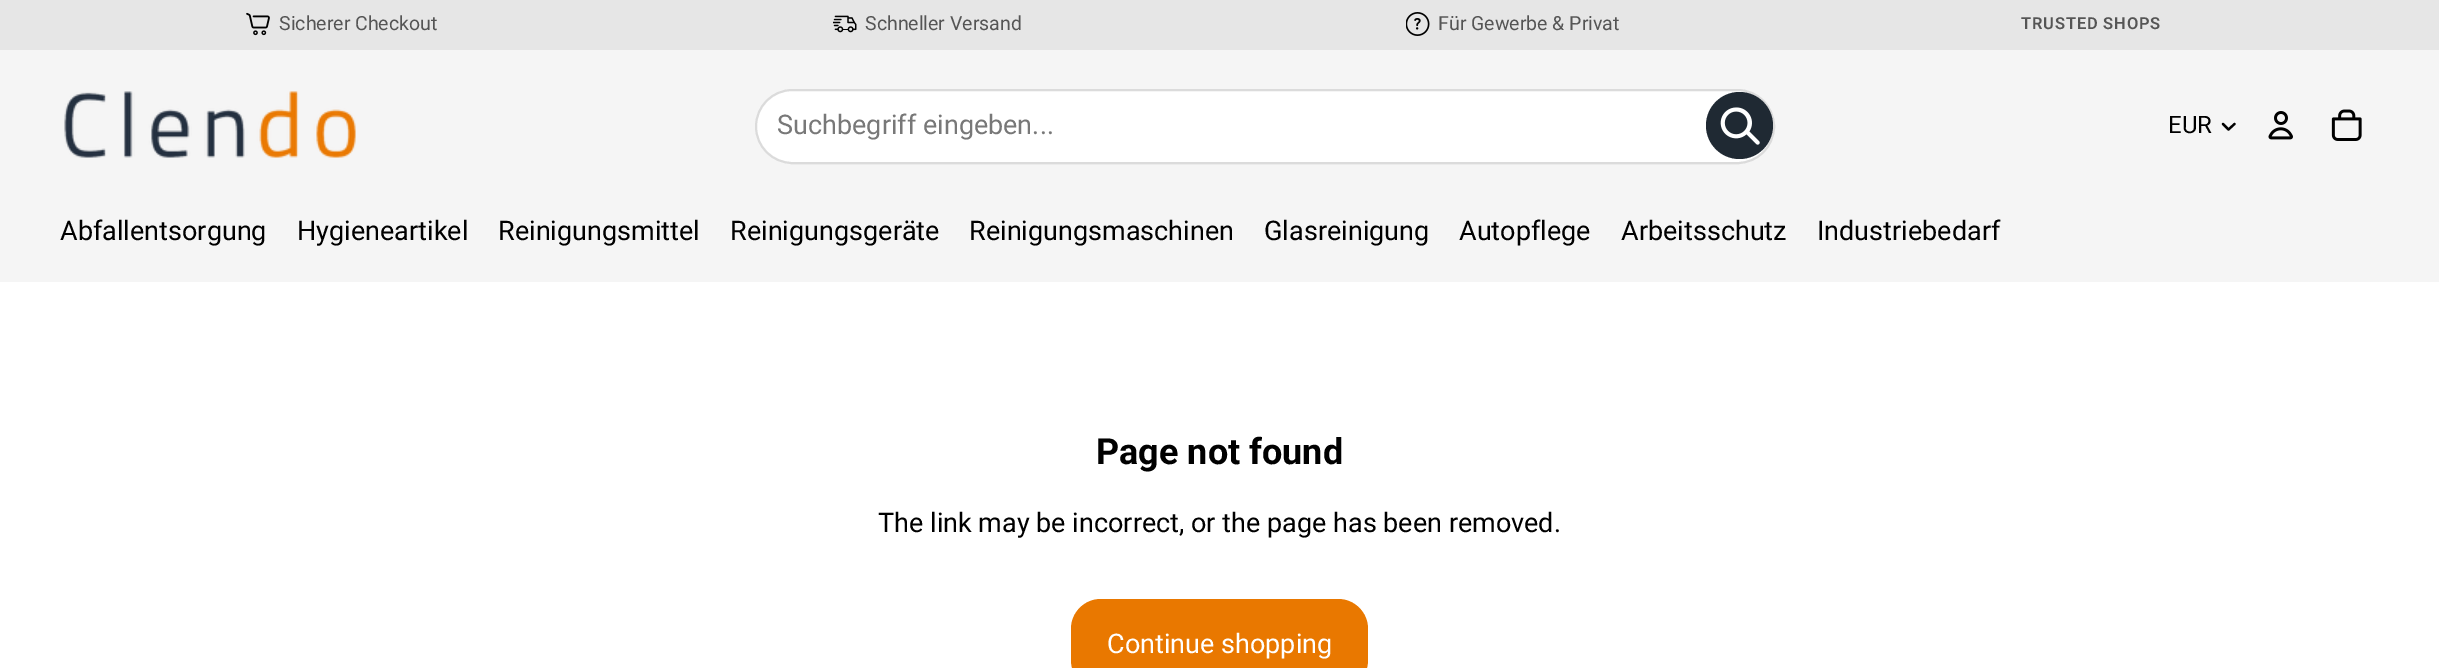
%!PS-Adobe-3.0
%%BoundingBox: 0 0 2439 668
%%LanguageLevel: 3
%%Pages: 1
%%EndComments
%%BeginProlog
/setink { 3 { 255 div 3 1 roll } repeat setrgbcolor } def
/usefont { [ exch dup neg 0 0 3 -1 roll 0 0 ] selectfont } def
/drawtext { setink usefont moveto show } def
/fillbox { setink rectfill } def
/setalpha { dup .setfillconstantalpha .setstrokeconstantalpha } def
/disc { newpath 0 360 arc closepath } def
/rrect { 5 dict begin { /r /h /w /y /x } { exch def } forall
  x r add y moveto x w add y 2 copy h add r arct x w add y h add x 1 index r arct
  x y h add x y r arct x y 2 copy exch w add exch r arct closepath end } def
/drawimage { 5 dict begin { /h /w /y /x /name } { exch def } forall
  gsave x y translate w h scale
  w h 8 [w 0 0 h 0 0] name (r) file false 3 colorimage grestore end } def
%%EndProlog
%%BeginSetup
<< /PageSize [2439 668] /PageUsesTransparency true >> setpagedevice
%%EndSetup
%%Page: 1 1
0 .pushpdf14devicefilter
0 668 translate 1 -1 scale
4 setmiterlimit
0 0 2439 668 255 255 255 fillbox
0 0 2439 50 230 230 230 fillbox
(assets/img1.rgb) 246 12 24 24 drawimage
(Sicherer Checkout) 279 30 /Roboto-Regular 19.5 85 85 85 drawtext
(assets/img2.rgb) 833 15 24 18 drawimage
(Schneller Versand) 865 30 /Roboto-Regular 19.5 85 85 85 drawtext
(assets/img3.rgb) 1406 12 24 24 drawimage
(Für Gewerbe & Privat) 1438 30 /Roboto-Regular 19.5 85 85 85 drawtext
/Roboto-SemiBold 16.5 usefont
2021 29 moveto 0.8 0 (TRUSTED SHOPS) ashow
0 50 2439 232 245 245 245 fillbox
(assets/img4.rgb) 64 91 292 67 drawimage
255 255 255 setink
755 89 1020 75 37.5 rrect fill
0.14 setalpha
0 0 0 setink
2 setlinewidth
756 90 1018 73 36.5 rrect stroke
1 setalpha
(Suchbegriff eingeben...) 777 134 /Roboto-Regular 27 120 120 120 drawtext
gsave
756 90 1017 72 36 rrect clip newpath
31 41 51 setink
1739.5 125.5 33.5 disc fill
grestore
(assets/img5.rgb) 1720 107 40 38 drawimage
(EUR) 2168 133 /Roboto-Regular 24 0 0 0 drawtext
2.2 setlinewidth
1 setlinecap
1 setlinejoin
2234.5 124 moveto 2228.5 129.5 lineto 2223 124 lineto stroke
(assets/img6.rgb) 2268 111 25 29 drawimage
(assets/img7.rgb) 2331 109 31 32 drawimage
(Abfallentsorgung) 60 240 /Roboto-Regular 27 0 0 0 drawtext
(Hygieneartikel) 297 240 /Roboto-Regular 27 0 0 0 drawtext
(Reinigungsmittel) 498 240 /Roboto-Regular 27 0 0 0 drawtext
(Reinigungsgeräte) 730 240 /Roboto-Regular 27 0 0 0 drawtext
(Reinigungsmaschinen) 969 240 /Roboto-Regular 27 0 0 0 drawtext
(Glasreinigung) 1264 240 /Roboto-Regular 27 0 0 0 drawtext
(Autopflege) 1459 240 /Roboto-Regular 27 0 0 0 drawtext
(Arbeitsschutz) 1621 240 /Roboto-Regular 27 0 0 0 drawtext
(Industriebedarf) 1817 240 /Roboto-Regular 27 0 0 0 drawtext
(Page not found) 1096 464 /Roboto-Bold 36 0 0 0 drawtext
(The link may be incorrect, or the page has been removed.) 878 532 /Roboto-Regular 27 0 0 0 drawtext
233 120 0 setink
1071 599 297 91 30 rrect fill
(Continue shopping) 1107 653 /Roboto-Regular 27 255 255 255 drawtext
.poppdf14devicefilter showpage
%%EOF
